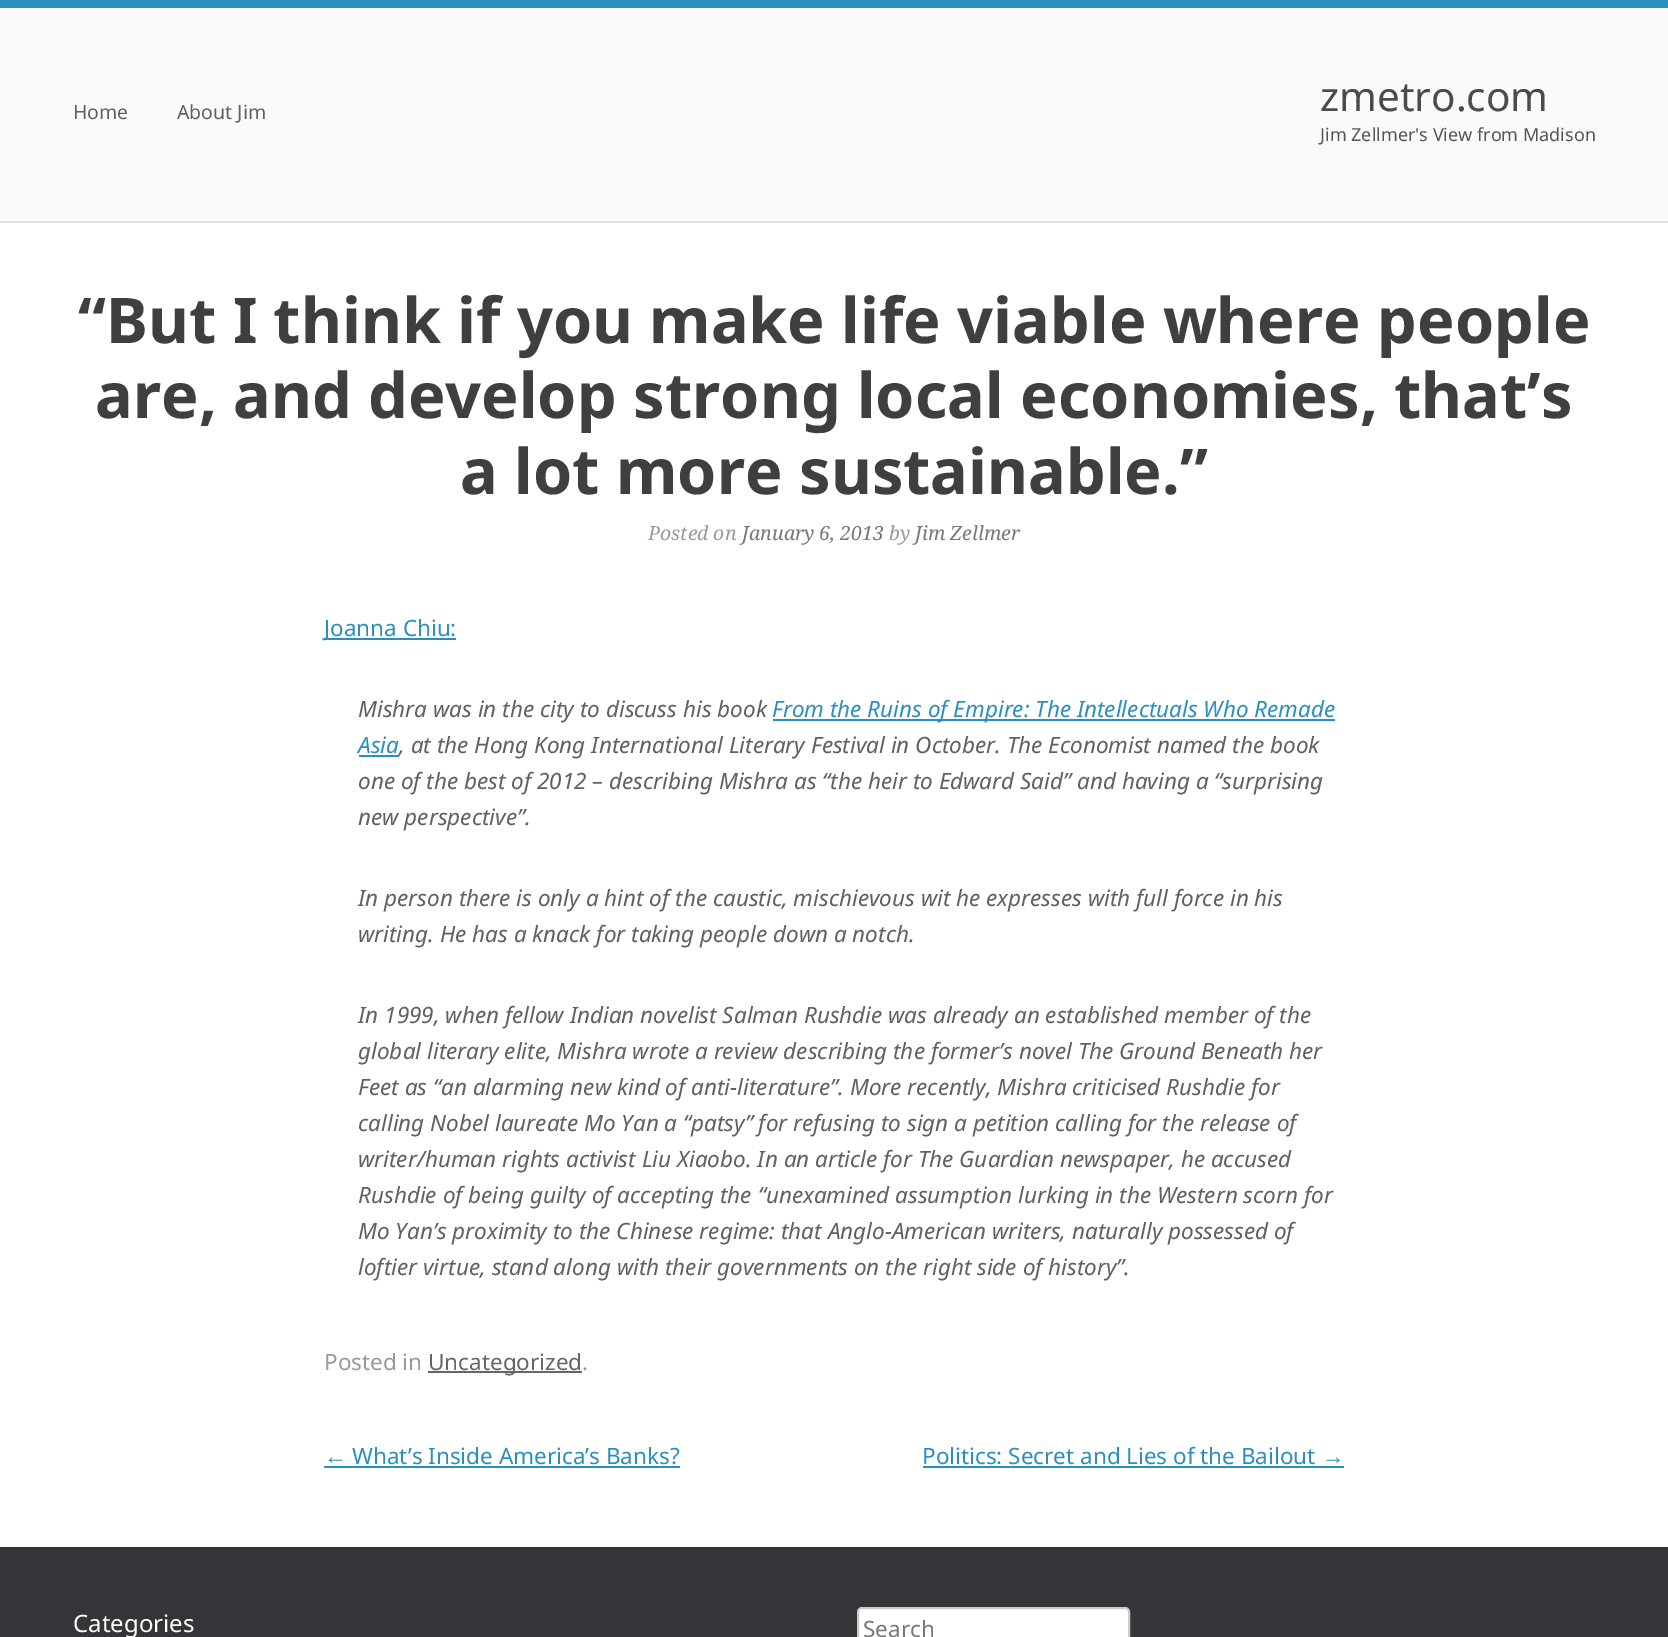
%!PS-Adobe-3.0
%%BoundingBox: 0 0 1668 1637
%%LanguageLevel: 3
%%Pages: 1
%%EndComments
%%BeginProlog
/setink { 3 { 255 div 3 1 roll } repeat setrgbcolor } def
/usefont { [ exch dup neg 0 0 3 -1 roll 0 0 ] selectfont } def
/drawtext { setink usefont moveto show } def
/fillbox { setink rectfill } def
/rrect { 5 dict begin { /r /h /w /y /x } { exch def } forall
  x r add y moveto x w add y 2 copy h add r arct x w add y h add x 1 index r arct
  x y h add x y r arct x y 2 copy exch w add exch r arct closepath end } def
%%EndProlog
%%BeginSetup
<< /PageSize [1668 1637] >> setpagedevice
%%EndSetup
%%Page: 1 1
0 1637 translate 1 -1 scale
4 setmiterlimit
0 0 1668 1637 255 255 255 fillbox
0 0 1668 8 42 143 189 fillbox
0 8 1668 213 250 250 250 fillbox
0 221 1668 2 224 224 224 fillbox
(Home) 73 119 /NotoSans-Regular 19.5 96 96 96 drawtext
(About Jim) 177 119 /NotoSans-Regular 19.5 96 96 96 drawtext
(zmetro.com) 1320 111 /NotoSans-Regular 40.5 75 75 75 drawtext
(Jim Zellmer's View from Madison) 1320 141 /NotoSans-Regular 18 85 85 85 drawtext
(“But I think if you make life viable where people) 78 343 /NotoSans-Bold 63 63 63 63 drawtext
(are, and develop strong local economies, that’s) 95 418 /NotoSans-Bold 63 63 63 63 drawtext
(a lot more sustainable.”) 460 494 /NotoSans-Bold 63 63 63 63 drawtext
(Posted on) 648 540 /NotoSerif-Italic 19.5 153 153 153 drawtext
(January 6, 2013) 742 540 /NotoSerif-Italic 19.5 119 119 119 drawtext
(by) 889 540 /NotoSerif-Italic 19.5 153 153 153 drawtext
(Jim Zellmer) 915 540 /NotoSerif-Italic 19.5 119 119 119 drawtext
324 638 132 2 42 143 189 fillbox
(Joanna Chiu:) 324 636 /NotoSans-Regular 22.5 42 143 189 drawtext
(Mishra was in the city to discuss his book) 358 717 /NotoSans-Italic 22.5 96 96 96 drawtext
773 719 562 2 42 143 189 fillbox
(From the Ruins of Empire: The Intellectuals Who Remade) 772 717 /NotoSans-Italic 22.5 42 143 189 drawtext
(Asia) 358 753 /NotoSans-Italic 22.5 42 143 189 drawtext
359 755 40 2 42 143 189 fillbox
(, at the Hong Kong International Literary Festival in October. The Economist named the book) 399 753 /NotoSans-Italic 22.5 96 96 96 drawtext
(one of the best of 2012 – describing Mishra as “the heir to Edward Said” and having a “surprising) 358 789 /NotoSans-Italic 22.5 96 96 96 drawtext
(new perspective”.) 358 825 /NotoSans-Italic 22.5 96 96 96 drawtext
(In person there is only a hint of the caustic, mischievous wit he expresses with full force in his) 358 906 /NotoSans-Italic 22.5 96 96 96 drawtext
(writing. He has a knack for taking people down a notch.) 358 942 /NotoSans-Italic 22.5 96 96 96 drawtext
(In 1999, when fellow Indian novelist Salman Rushdie was already an established member of the) 358 1023 /NotoSans-Italic 22.5 96 96 96 drawtext
(global literary elite, Mishra wrote a review describing the former’s novel The Ground Beneath her) 358 1059 /NotoSans-Italic 22.5 96 96 96 drawtext
(Feet as “an alarming new kind of anti-literature”. More recently, Mishra criticised Rushdie for) 358 1095 /NotoSans-Italic 22.5 96 96 96 drawtext
(calling Nobel laureate Mo Yan a “patsy” for refusing to sign a petition calling for the release of) 358 1131 /NotoSans-Italic 22.5 96 96 96 drawtext
(writer/human rights activist Liu Xiaobo. In an article for The Guardian newspaper, he accused) 358 1167 /NotoSans-Italic 22.5 96 96 96 drawtext
(Rushdie of being guilty of accepting the “unexamined assumption lurking in the Western scorn for) 358 1203 /NotoSans-Italic 22.5 96 96 96 drawtext
(Mo Yan’s proximity to the Chinese regime: that Anglo-American writers, naturally possessed of) 358 1239 /NotoSans-Italic 22.5 96 96 96 drawtext
(loftier virtue, stand along with their governments on the right side of history”.) 358 1275 /NotoSans-Italic 22.5 96 96 96 drawtext
(Posted in) 324 1370 /NotoSans-Regular 22.5 153 153 153 drawtext
428 1371 154 2 102 102 102 fillbox
(Uncategorized) 428 1370 /NotoSans-Regular 22.5 102 102 102 drawtext
(.) 582 1370 /NotoSans-Regular 22.5 153 153 153 drawtext
(←) 324 1464 /LiberationSans-Regular 22.5 42 143 189 drawtext
324 1466 356 2 42 143 189 fillbox
(What’s Inside America’s Banks?) 352 1464 /NotoSans-Regular 22.5 42 143 189 drawtext
(Politics: Secret and Lies of the Bailout) 922 1464 /NotoSans-Regular 22.5 42 143 189 drawtext
(→) 1322 1464 /LiberationSans-Regular 22.5 42 143 189 drawtext
923 1466 421 2 42 143 189 fillbox
0 1547 1668 90 52 53 56 fillbox
(Categories) 73 1632 /NotoSans-Regular 24 255 255 255 drawtext
858 1608 271 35 4 rrect gsave fill grestore
204 204 204 setink
2 setlinewidth
stroke
(Search) 863 1637 /NotoSans-Regular 22.5 119 119 119 drawtext
showpage
%%EOF
